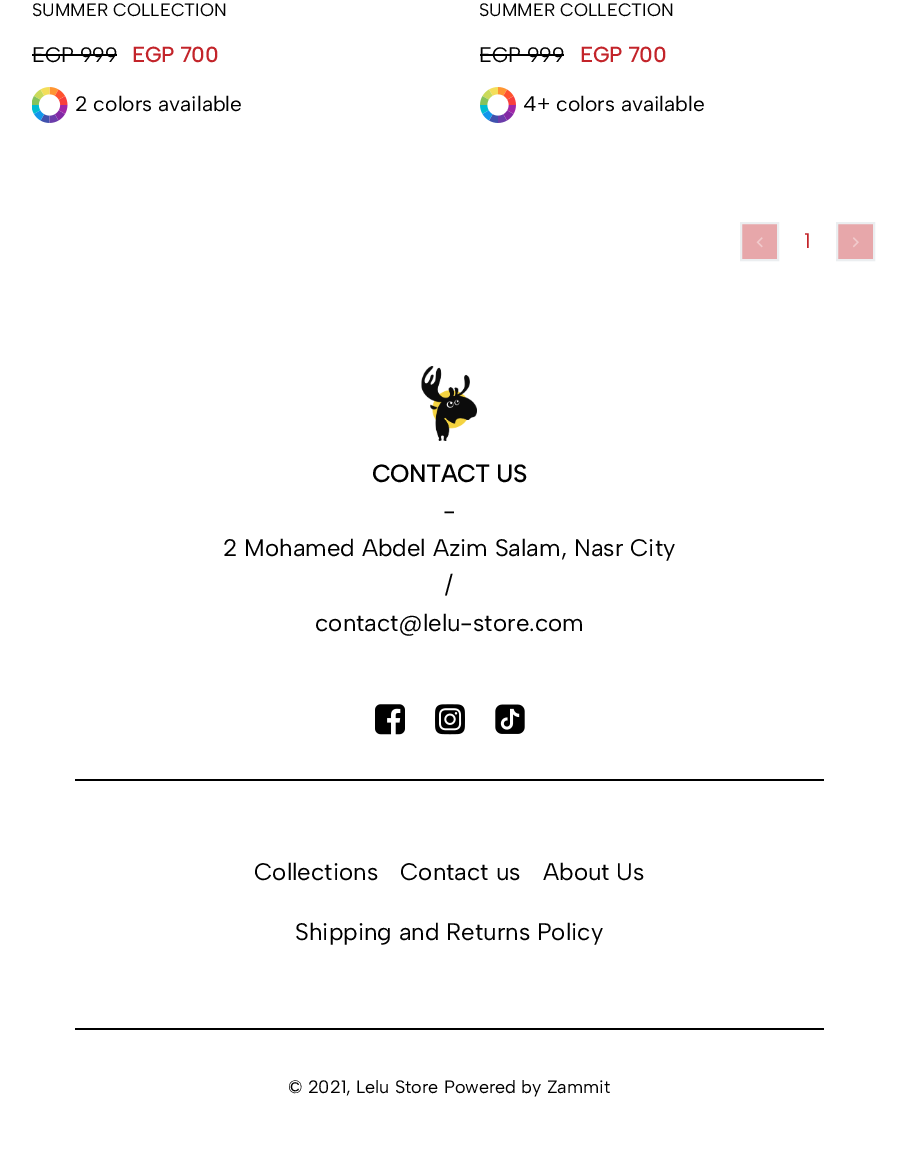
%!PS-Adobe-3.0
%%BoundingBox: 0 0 898 1175
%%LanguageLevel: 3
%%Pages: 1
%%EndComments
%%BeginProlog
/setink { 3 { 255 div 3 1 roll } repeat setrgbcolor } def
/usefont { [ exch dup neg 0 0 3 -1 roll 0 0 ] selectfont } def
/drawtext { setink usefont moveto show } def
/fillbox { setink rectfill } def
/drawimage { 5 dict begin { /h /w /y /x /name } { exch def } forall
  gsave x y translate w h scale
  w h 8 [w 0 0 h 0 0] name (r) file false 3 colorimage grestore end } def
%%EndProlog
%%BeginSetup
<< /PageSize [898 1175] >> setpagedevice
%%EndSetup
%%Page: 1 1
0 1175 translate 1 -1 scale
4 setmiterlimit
0 0 898 1175 255 255 255 fillbox
(SUMMER COLLECTION) 32 16 /AlbertSans-Regular 18 0 0 0 drawtext
(EGP 999) 32 62 /AlbertSans-Regular 21 0 0 0 drawtext
32 54 85 2 0 0 0 fillbox
(EGP 700) 132 62 /AlbertSans-Bold 21 195 36 42 drawtext
(assets/img1.rgb) 32 87 36 36 drawimage
(2 colors available) 75 111 /AlbertSans-Regular 21 0 0 0 drawtext
(SUMMER COLLECTION) 479 16 /AlbertSans-Regular 18 0 0 0 drawtext
(EGP 999) 479 62 /AlbertSans-Regular 21 0 0 0 drawtext
480 54 84 2 0 0 0 fillbox
(EGP 700) 580 62 /AlbertSans-Bold 21 195 36 42 drawtext
(assets/img2.rgb) 480 87 36 36 drawimage
(4+ colors available) 523 111 /AlbertSans-Regular 21 0 0 0 drawtext
231 167 170 setink
741 223 moveto 778 223 lineto 778 260 lineto 741 260 lineto closepath gsave fill grestore
235 238 240 setink
2 setlinewidth
stroke
(assets/img3.rgb) 756 237 7 11 drawimage
(1) 804 248 /AlbertSans-Regular 21 195 36 42 drawtext
231 167 170 setink
837 223 moveto 874 223 lineto 874 260 lineto 837 260 lineto closepath gsave fill grestore
235 238 240 setink
stroke
(assets/img4.rgb) 853 237 6 11 drawimage
(assets/img5.rgb) 421 366 56 75 drawimage
(CONTACT US) 372 482 /AlbertSans-Bold 24 0 0 0 drawtext
(-) 443 519 /AlbertSans-Regular 24 0 0 0 drawtext
(2 Mohamed Abdel Azim Salam, Nasr City) 223 556 /AlbertSans-Regular 24 0 0 0 drawtext
(/) 445 593 /AlbertSans-Regular 24 0 0 0 drawtext
(contact@lelu-store.com) 315 631 /AlbertSans-Regular 24 0 0 0 drawtext
(assets/img6.rgb) 375 704 30 31 drawimage
(assets/img7.rgb) 435 704 30 31 drawimage
(assets/img8.rgb) 495 704 30 30 drawimage
75 779 749 2 0 0 0 fillbox
(Collections) 254 880 /AlbertSans-Regular 24 0 0 0 drawtext
(Contact us) 400 880 /AlbertSans-Regular 24 0 0 0 drawtext
(About Us) 543 880 /AlbertSans-Regular 24 0 0 0 drawtext
(Shipping and Returns Policy) 295 940 /AlbertSans-Regular 24 0 0 0 drawtext
75 1028 749 2 0 0 0 fillbox
(© 2021, Lelu Store Powered by Zammit) 288 1093 /AlbertSans-Regular 18 0 0 0 drawtext
showpage
%%EOF
